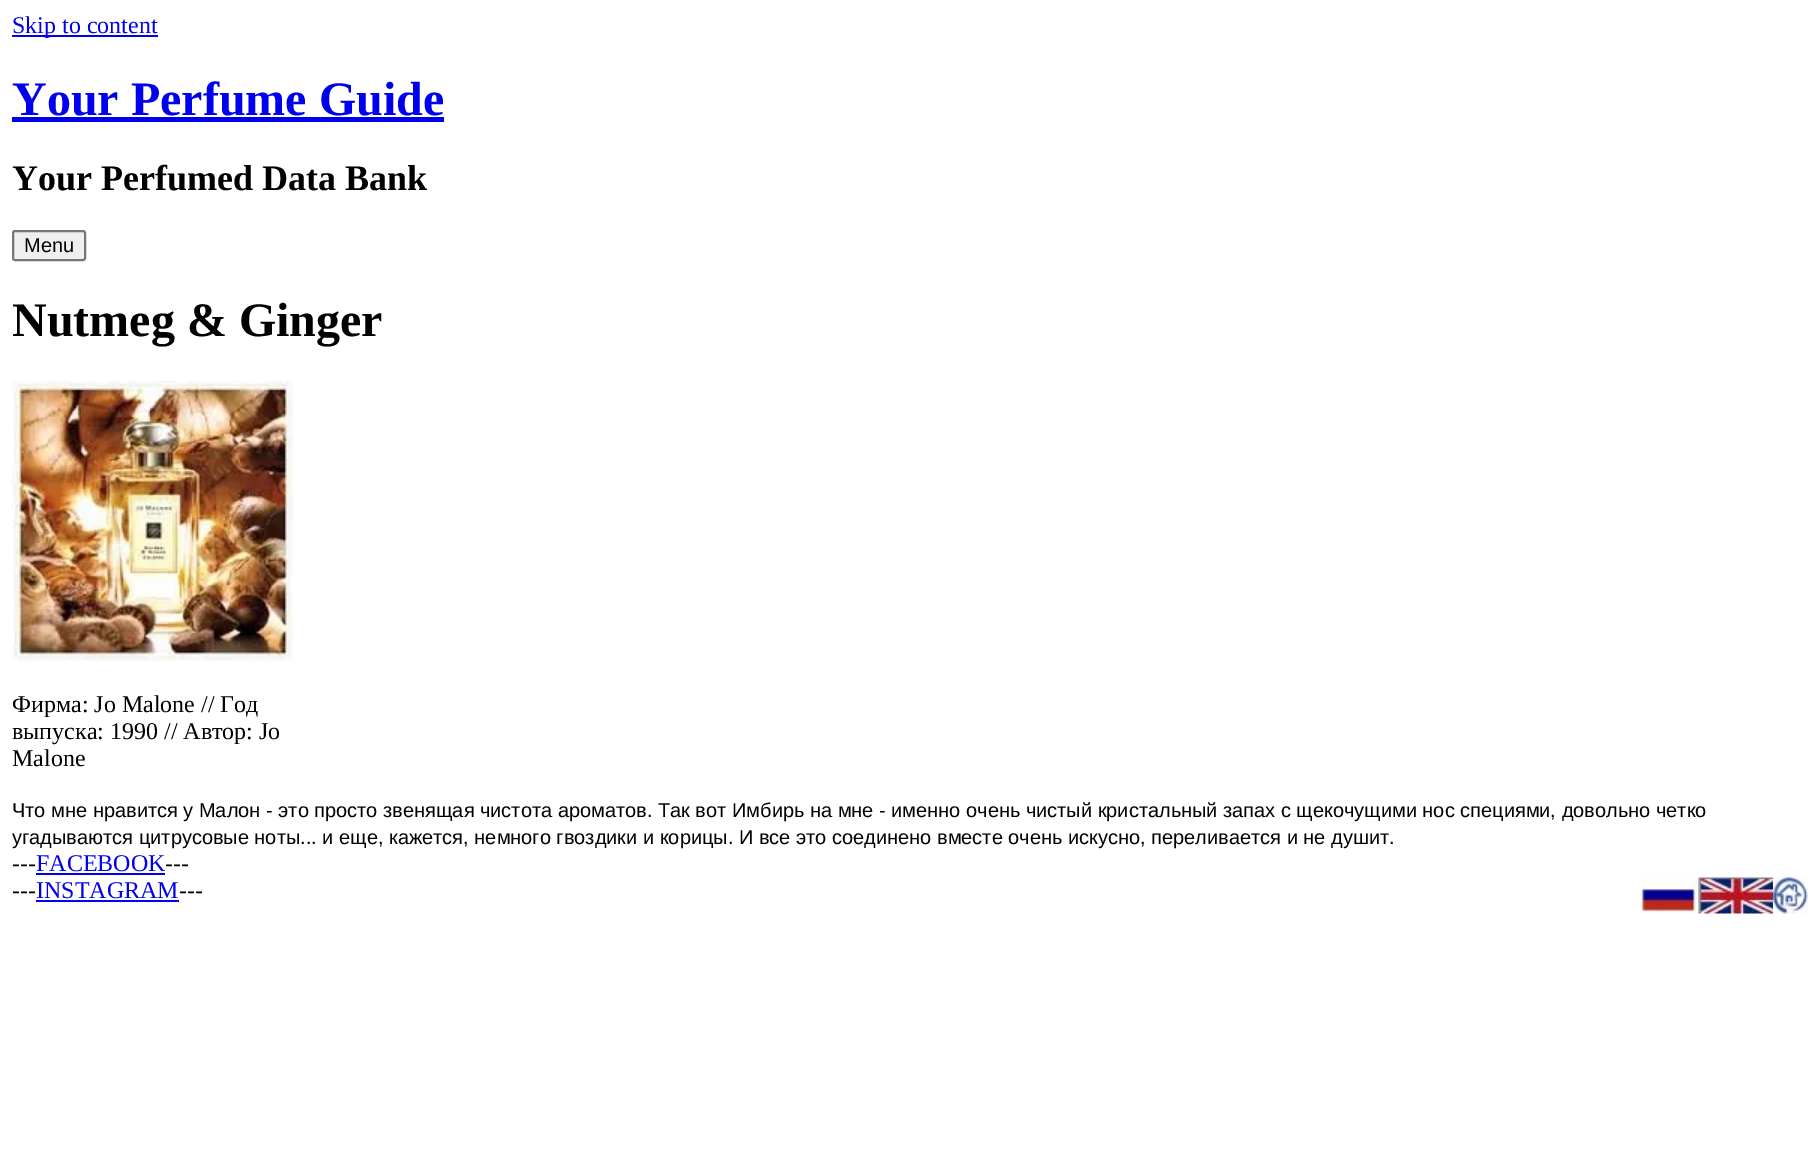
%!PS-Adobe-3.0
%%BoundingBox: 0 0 1819 1151
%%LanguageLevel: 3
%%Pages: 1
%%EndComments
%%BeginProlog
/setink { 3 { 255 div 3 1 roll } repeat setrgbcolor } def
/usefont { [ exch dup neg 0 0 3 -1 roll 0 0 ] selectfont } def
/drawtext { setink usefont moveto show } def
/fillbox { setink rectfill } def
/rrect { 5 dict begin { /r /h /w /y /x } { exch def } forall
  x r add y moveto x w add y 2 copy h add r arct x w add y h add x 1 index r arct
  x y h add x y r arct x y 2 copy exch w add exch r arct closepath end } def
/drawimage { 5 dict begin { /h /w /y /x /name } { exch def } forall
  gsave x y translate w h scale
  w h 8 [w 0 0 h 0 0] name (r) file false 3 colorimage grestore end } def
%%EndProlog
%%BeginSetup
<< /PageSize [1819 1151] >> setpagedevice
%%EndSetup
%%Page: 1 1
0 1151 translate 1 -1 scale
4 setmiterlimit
0 0 1819 1151 255 255 255 fillbox
12 35 146 2 0 0 238 fillbox
(Skip to content) 12 33 /LiberationSerif-Regular 24 0 0 238 drawtext
(Your Perfume Guide) 12 115 /LiberationSerif-Bold 48 0 0 238 drawtext
12 117 432 5 0 0 238 fillbox
(Your Perfumed Data Bank) 12 190 /LiberationSerif-Bold 36 0 0 0 drawtext
239 239 239 setink
13 231 72 29 2 rrect gsave fill grestore
118 118 118 setink
2 setlinewidth
stroke
(Menu) 24 252 /LiberationSans-Regular 20 0 0 0 drawtext
(Nutmeg & Ginger) 12 336 /LiberationSerif-Bold 48 0 0 0 drawtext
(assets/img1.rgb) 12 381 282 281 drawimage
(Фирма: Jo Malone // Год) 12 712 /LiberationSerif-Regular 24 0 0 0 drawtext
(выпуска: 1990 // Автор: Jo) 12 739 /LiberationSerif-Regular 24 0 0 0 drawtext
(Malone) 12 766 /LiberationSerif-Regular 24 0 0 0 drawtext
(Что мне нравится у Малон - это просто звенящая чистота ароматов. Так вот Имбирь на мне - именно очень чистый кристальный запах с щекочущими нос специями, довольно четко) 12 817 /LiberationSans-Regular 20 0 0 0 drawtext
(угадываются цитрусовые ноты... и еще, кажется, немного гвоздики и корицы. И все это соединено вместе очень искусно, переливается и не душит.) 12 844 /LiberationSans-Regular 20 0 0 0 drawtext
(---) 12 871 /LiberationSerif-Regular 24 0 0 0 drawtext
(FACEBOOK) 36 871 /LiberationSerif-Regular 24 0 0 238 drawtext
36 873 129 2 0 0 238 fillbox
(---) 165 871 /LiberationSerif-Regular 24 0 0 0 drawtext
(---) 12 898 /LiberationSerif-Regular 24 0 0 0 drawtext
(INSTAGRAM) 36 898 /LiberationSerif-Regular 24 0 0 238 drawtext
36 900 143 2 0 0 238 fillbox
(---) 179 898 /LiberationSerif-Regular 24 0 0 0 drawtext
(assets/img2.rgb) 1640 879 57 34 drawimage
(assets/img3.rgb) 1698 877 75 37 drawimage
(assets/img4.rgb) 1773 877 35 37 drawimage
showpage
%%EOF
